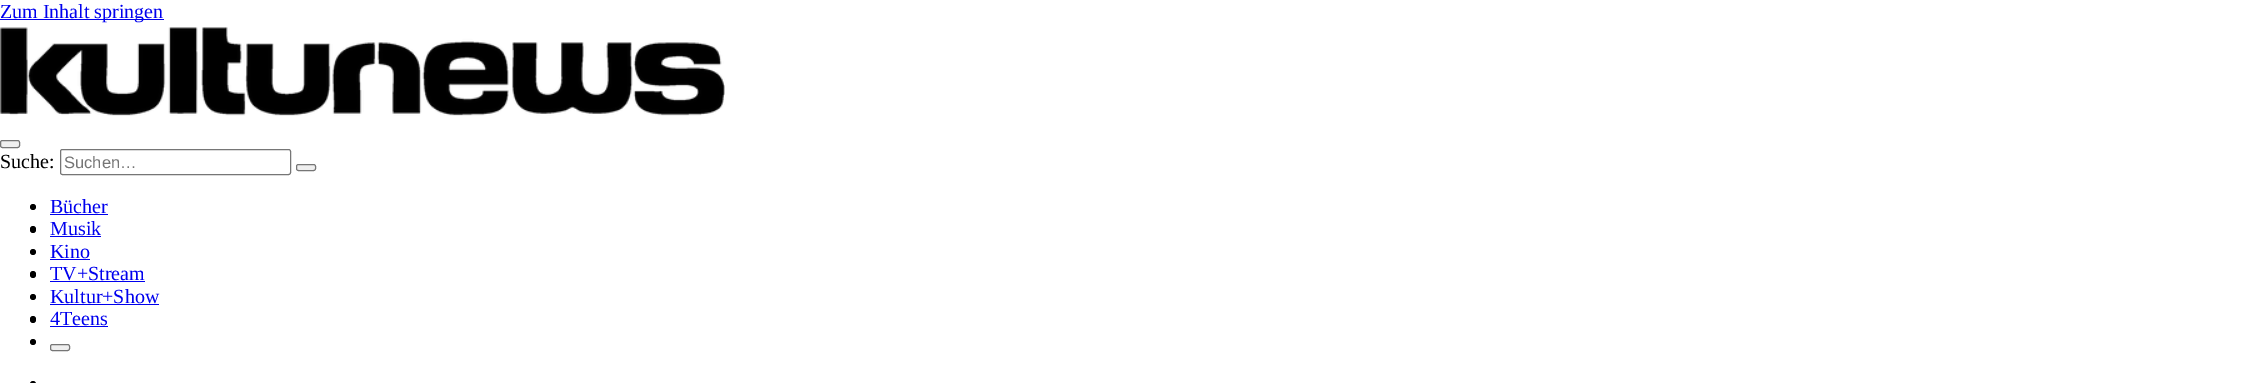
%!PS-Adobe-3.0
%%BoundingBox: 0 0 2245 383
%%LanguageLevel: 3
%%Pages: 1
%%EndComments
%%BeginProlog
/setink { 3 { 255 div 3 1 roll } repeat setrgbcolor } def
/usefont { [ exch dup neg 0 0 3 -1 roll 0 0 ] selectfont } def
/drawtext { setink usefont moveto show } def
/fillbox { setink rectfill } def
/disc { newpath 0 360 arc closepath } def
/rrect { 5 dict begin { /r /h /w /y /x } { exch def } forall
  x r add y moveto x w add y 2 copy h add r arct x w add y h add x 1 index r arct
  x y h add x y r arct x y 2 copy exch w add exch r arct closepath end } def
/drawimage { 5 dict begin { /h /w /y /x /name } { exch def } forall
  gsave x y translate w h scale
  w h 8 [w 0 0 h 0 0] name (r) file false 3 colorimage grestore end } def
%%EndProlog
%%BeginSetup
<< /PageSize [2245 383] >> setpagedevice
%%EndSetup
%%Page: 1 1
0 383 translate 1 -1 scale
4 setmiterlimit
0 0 2245 383 255 255 255 fillbox
0 19 164 1 0 0 238 fillbox
(Zum Inhalt springen) 0 18 /LiberationSerif-Regular 20 0 0 238 drawtext
(assets/img1.rgb) 0 27 725 89 drawimage
239 239 239 setink
0.5 140.5 19 7 2 rrect gsave fill grestore
118 118 118 setink
stroke
(Suche:) 0 168 /LiberationSerif-Regular 20 0 0 0 drawtext
118 118 118 setink
60.5 149.5 230 25 2 rrect stroke
(Suchen…) 64 168 /LiberationSans-Regular 16.5 117 117 117 drawtext
239 239 239 setink
296.5 164.5 19 6 2 rrect gsave fill grestore
118 118 118 setink
stroke
0 0 0 setink
33 207 3 disc fill
(Bücher) 50 213 /LiberationSerif-Regular 20 0 0 238 drawtext
50 214 58 1 0 0 238 fillbox
0 0 0 setink
30 226 6 7 3 rrect fill
(Musik) 50 235 /LiberationSerif-Regular 20 0 0 238 drawtext
50 236 51 1 0 0 238 fillbox
0 0 0 setink
33 252 3 disc fill
(Kino) 50 258 /LiberationSerif-Regular 20 0 0 238 drawtext
50 259 40 1 0 0 238 fillbox
0 0 0 setink
30 271 6 7 3 rrect fill
(TV+Stream) 50 280 /LiberationSerif-Regular 20 0 0 238 drawtext
50 281 95 1 0 0 238 fillbox
0 0 0 setink
33 297 3 disc fill
(Kultur+Show) 50 303 /LiberationSerif-Regular 20 0 0 238 drawtext
50 304 109 1 0 0 238 fillbox
0 0 0 setink
30 316 6 7 3 rrect fill
(4Teens) 50 325 /LiberationSerif-Regular 20 0 0 238 drawtext
50 326 58 1 0 0 238 fillbox
0 0 0 setink
33 342 3 disc fill
239 239 239 setink
50.5 344.5 19 6 2 rrect gsave fill grestore
118 118 118 setink
stroke
0 0 0 setink
30 381 6 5 3 rrect fill
showpage
%%EOF
